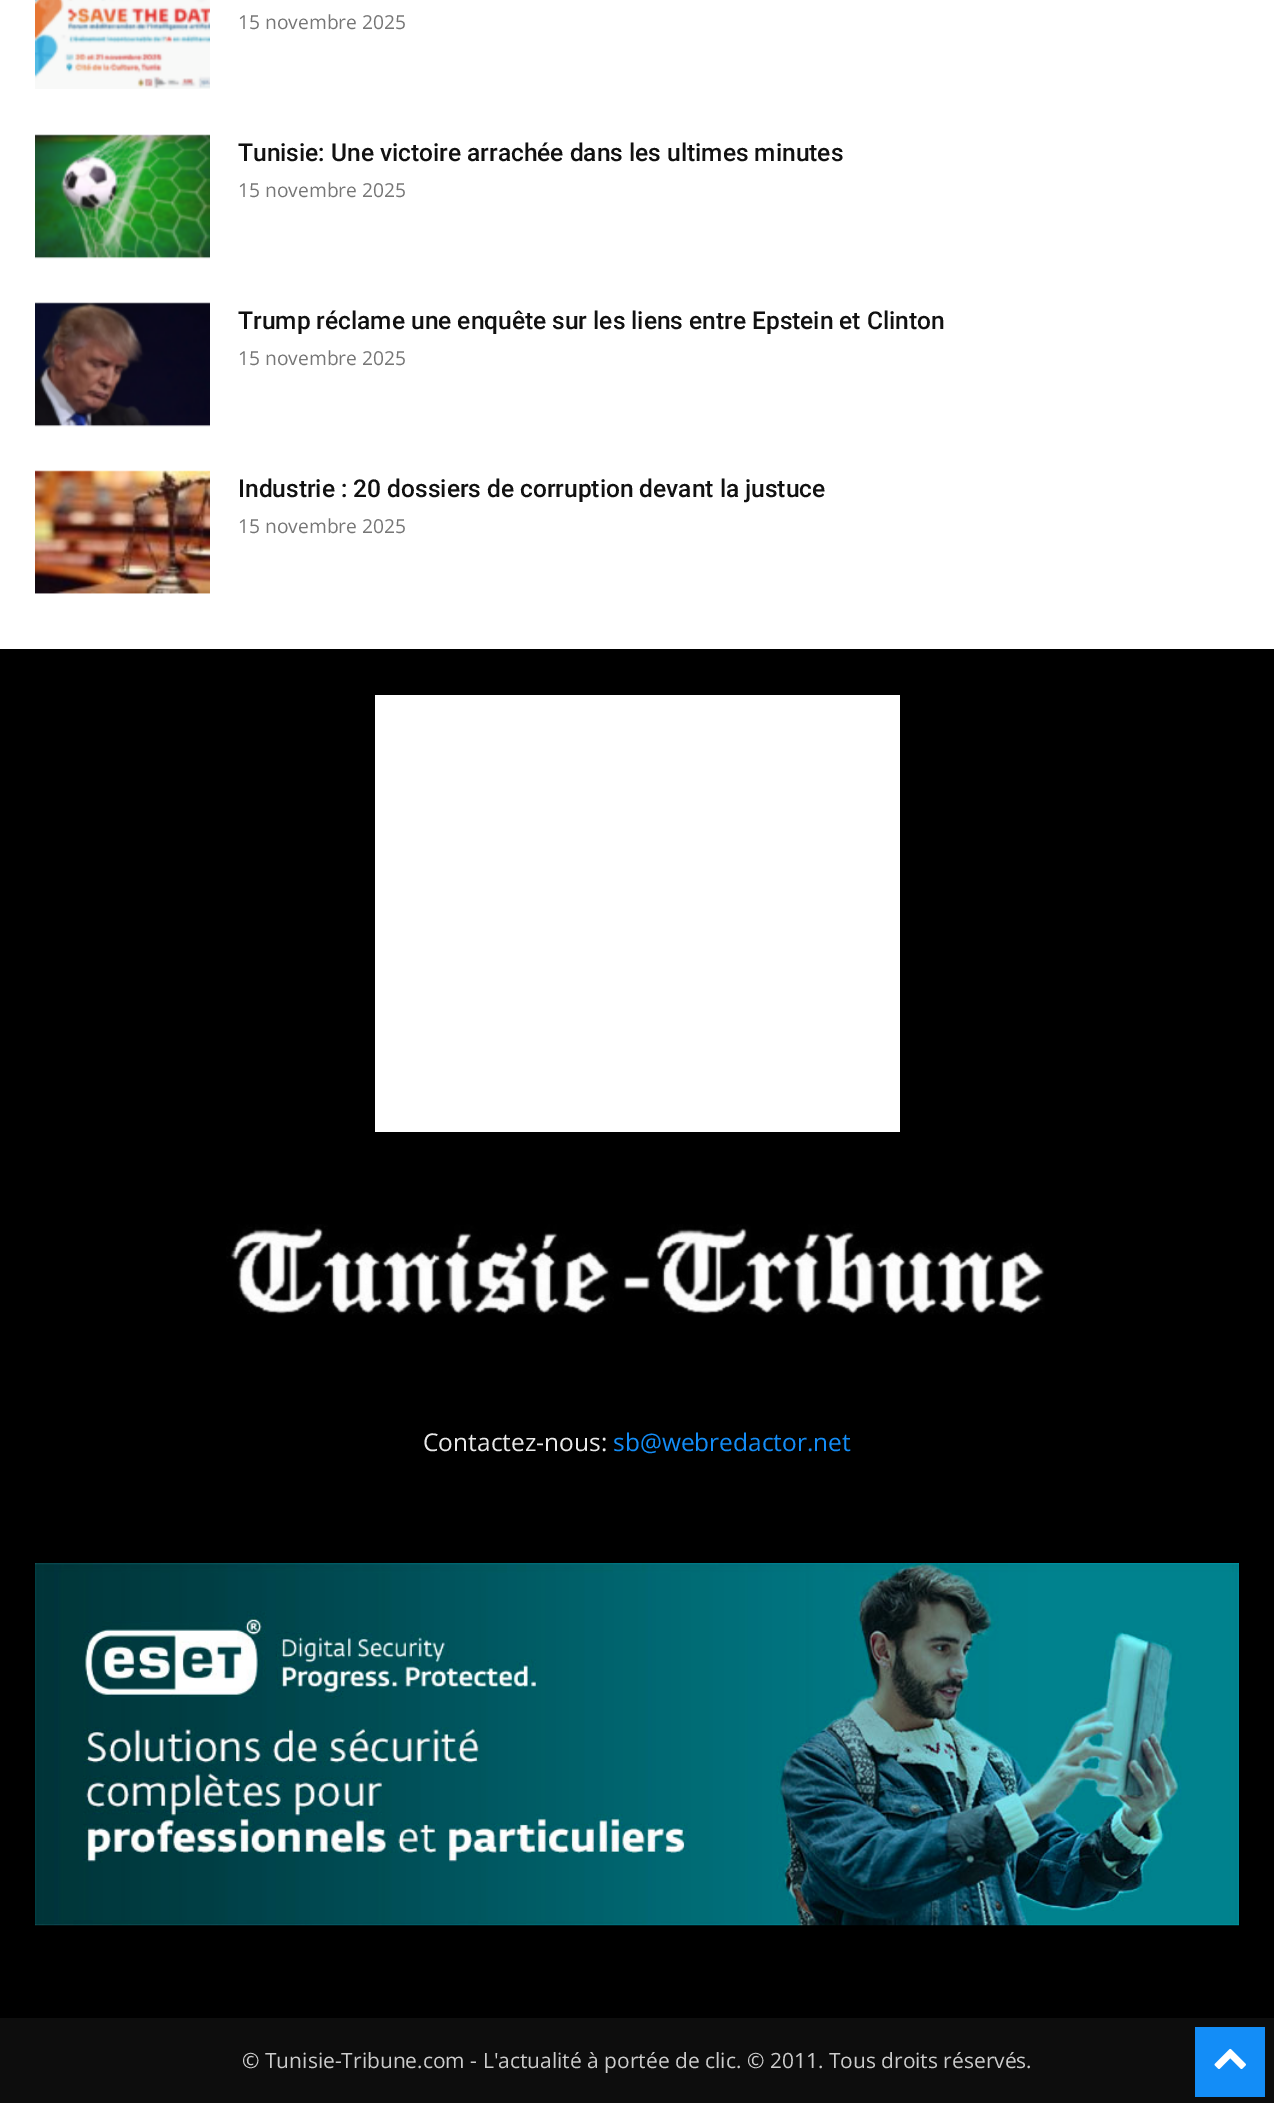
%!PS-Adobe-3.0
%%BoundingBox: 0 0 1274 2103
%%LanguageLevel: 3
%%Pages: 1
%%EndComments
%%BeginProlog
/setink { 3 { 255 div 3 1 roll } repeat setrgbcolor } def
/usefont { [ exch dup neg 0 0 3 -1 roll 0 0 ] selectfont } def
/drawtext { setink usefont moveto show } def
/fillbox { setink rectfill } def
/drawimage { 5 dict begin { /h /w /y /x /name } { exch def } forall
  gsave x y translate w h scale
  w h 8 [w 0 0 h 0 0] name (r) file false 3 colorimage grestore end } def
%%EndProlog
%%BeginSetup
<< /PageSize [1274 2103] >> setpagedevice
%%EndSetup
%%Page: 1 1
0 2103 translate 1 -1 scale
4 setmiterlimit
0 0 1274 2103 0 0 0 fillbox
0 0 1274 649 255 255 255 fillbox
(assets/img1.rgb) 35 0 175 89 drawimage
(15 novembre 2025) 238 29 /OpenSans-Regular 19.25 118 118 118 drawtext
(assets/img2.rgb) 35 134 175 125 drawimage
(Tunisie: Une victoire arrachée dans les ultimes minutes) 238 161 /Roboto-Medium 24.5 17 17 17 drawtext
(15 novembre 2025) 238 197 /OpenSans-Regular 19.25 118 118 118 drawtext
(assets/img3.rgb) 35 302 175 125 drawimage
(Trump réclame une enquête sur les liens entre Epstein et Clinton) 238 329 /Roboto-Medium 24.5 17 17 17 drawtext
(15 novembre 2025) 238 365 /OpenSans-Regular 19.25 118 118 118 drawtext
(assets/img4.rgb) 35 470 175 124 drawimage
(Industrie : 20 dossiers de corruption devant la justuce) 238 497 /Roboto-Medium 24.5 17 17 17 drawtext
(15 novembre 2025) 238 533 /OpenSans-Regular 19.25 118 118 118 drawtext
375 695 525 437 255 255 255 fillbox
(assets/img5.rgb) 226 1224 819 91 drawimage
(Contactez-nous:) 423 1451 /OpenSans-Regular 24.5 234 234 234 drawtext
(sb@webredactor.net) 613 1451 /OpenSans-Regular 24.5 19 141 247 drawtext
(assets/img6.rgb) 35 1563 1204 363 drawimage
0 2018 1274 85 13 13 13 fillbox
(© Tunisie-Tribune.com - L'actualité à portée de clic. © 2011. Tous droits réservés.) 242 2068 /OpenSans-Regular 21 204 204 204 drawtext
1195 2027 70 70 19 141 247 fillbox
(assets/img7.rgb) 1214 2048 32 21 drawimage
showpage
%%EOF
